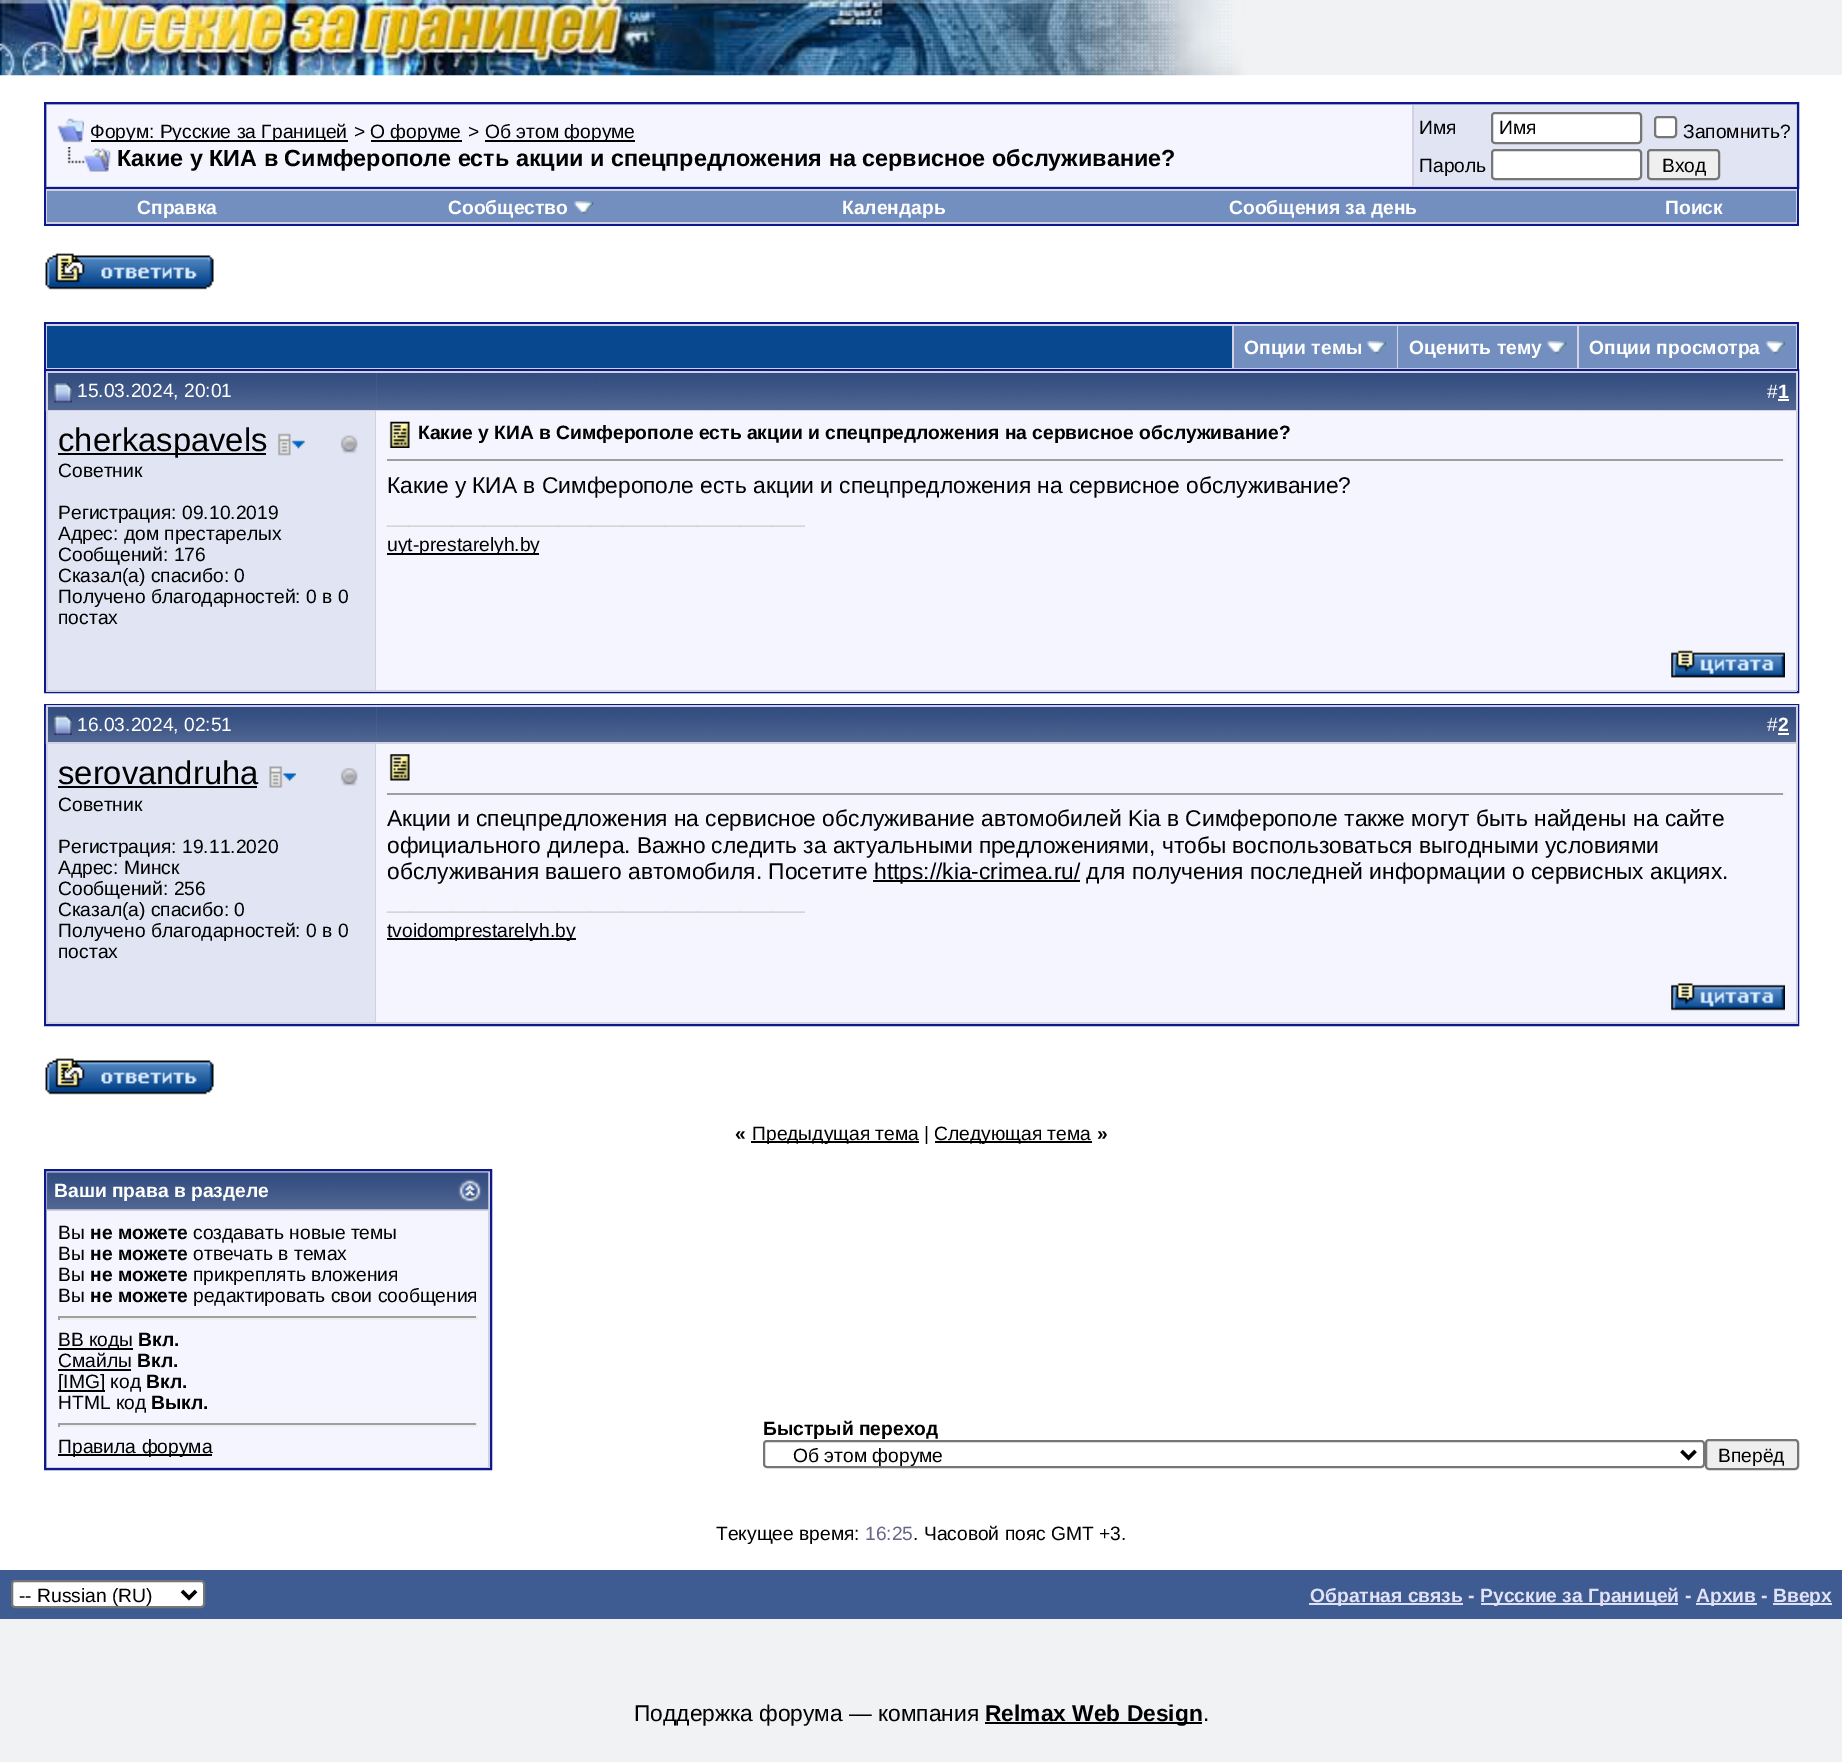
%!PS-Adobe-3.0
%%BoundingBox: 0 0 1842 1762
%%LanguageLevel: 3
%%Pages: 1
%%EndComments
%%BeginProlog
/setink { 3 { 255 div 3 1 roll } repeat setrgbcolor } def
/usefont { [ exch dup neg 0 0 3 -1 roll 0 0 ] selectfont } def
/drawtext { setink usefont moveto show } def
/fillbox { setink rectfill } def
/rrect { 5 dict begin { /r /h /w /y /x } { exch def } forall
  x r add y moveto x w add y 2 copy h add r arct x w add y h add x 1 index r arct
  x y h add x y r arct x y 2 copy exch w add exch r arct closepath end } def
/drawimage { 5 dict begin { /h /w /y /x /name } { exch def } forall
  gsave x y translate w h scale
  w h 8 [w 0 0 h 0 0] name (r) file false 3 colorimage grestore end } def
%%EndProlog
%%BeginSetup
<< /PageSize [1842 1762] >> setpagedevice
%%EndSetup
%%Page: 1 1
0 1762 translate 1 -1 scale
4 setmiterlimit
0 0 1842 1762 241 242 244 fillbox
0 75 1842 1495 255 255 255 fillbox
(assets/img1.rgb) 0 0 1247 76 drawimage
209 209 225 setink
45 103 moveto 1798 103 lineto 1798 188 lineto 45 188 lineto closepath gsave fill grestore
11 25 140 setink
2 setlinewidth
stroke
47 105 1365 81 245 245 255 fillbox
(assets/img2.rgb) 57 118 27 25 drawimage
91 140 257 2 0 0 0 fillbox
(Форум: Русские за Границей) 90 138 /LiberationSans-Regular 19.25 0 0 0 drawtext
(>) 354 138 /LiberationSans-Regular 19.25 0 0 0 drawtext
371 140 91 2 0 0 0 fillbox
(О форуме) 370 138 /LiberationSans-Regular 19.25 0 0 0 drawtext
(>) 468 138 /LiberationSans-Regular 19.25 0 0 0 drawtext
485 140 150 2 0 0 0 fillbox
(Об этом форуме) 485 138 /LiberationSans-Regular 19.25 0 0 0 drawtext
(assets/img3.rgb) 67 147 44 25 drawimage
(Какие у КИА в Симферополе есть акции и спецпредложения на сервисное обслуживание?) 117 166 /LiberationSans-Bold 23.35 0 0 0 drawtext
1414 105 382 81 225 228 242 fillbox
(Имя) 1419 134 /LiberationSans-Regular 19.25 0 0 0 drawtext
255 255 255 setink
1492 113 149 30 3 rrect gsave fill grestore
118 118 118 setink
stroke
(Имя) 1499 134 /LiberationSans-Regular 19.25 0 0 0 drawtext
255 255 255 setink
1655 117 21 20 3 rrect gsave fill grestore
118 118 118 setink
stroke
(Запомнить?) 1683 138 /LiberationSans-Regular 19.25 0 0 0 drawtext
(Пароль) 1419 172 /LiberationSans-Regular 19.25 0 0 0 drawtext
255 255 255 setink
1492 150 149 29 3 rrect gsave fill grestore
118 118 118 setink
stroke
239 239 239 setink
1648 150 71 29 3 rrect gsave fill grestore
118 118 118 setink
stroke
(Вход) 1662 172 /LiberationSans-Regular 19.25 0 0 0 drawtext
46 189 1751 35 209 209 225 fillbox
1797 189 2 37 11 25 140 fillbox
44 224 1755 2 11 25 140 fillbox
44 189 2 37 11 25 140 fillbox
47 191 1749 31 115 143 191 fillbox
(Справка) 137 214 /LiberationSans-Bold 19.25 255 255 255 drawtext
(Сообщество) 448 214 /LiberationSans-Bold 19.25 255 255 255 drawtext
(assets/img4.rgb) 574 201 20 13 drawimage
(Календарь) 842 214 /LiberationSans-Bold 19.25 255 255 255 drawtext
(Сообщения за день) 1229 214 /LiberationSans-Bold 19.25 255 255 255 drawtext
(Поиск) 1665 214 /LiberationSans-Bold 19.25 255 255 255 drawtext
(assets/img5.rgb) 45 253 169 37 drawimage
46 324 1751 45 209 209 225 fillbox
44 322 1755 2 11 25 140 fillbox
1797 322 2 47 11 25 140 fillbox
44 322 2 47 11 25 140 fillbox
47 326 1185 42 7 72 143 fillbox
1234 326 163 42 115 143 191 fillbox
(Опции темы) 1244 354 /LiberationSans-Bold 19.25 255 255 255 drawtext
(assets/img6.rgb) 1366 341 20 13 drawimage
1398 326 179 42 115 143 191 fillbox
(Оценить тему) 1409 354 /LiberationSans-Bold 19.25 255 255 255 drawtext
(assets/img7.rgb) 1547 341 20 13 drawimage
1579 326 217 42 115 143 191 fillbox
(Опции просмотра) 1589 354 /LiberationSans-Bold 19.25 255 255 255 drawtext
(assets/img8.rgb) 1765 341 20 13 drawimage
11 25 140 setink
45 370 1753 322 rectstroke
(assets/img9.rgb) 45 372 332 40 drawimage
46 371 1751 2 209 209 225 fillbox
46 410 330 1 209 209 225 fillbox
46 371 2 268 209 209 225 fillbox
(assets/img10.rgb) 54 383 18 20 drawimage
(15.03.2024, 20:01) 77 397 /LiberationSans-Regular 19.25 255 255 255 drawtext
(assets/img11.rgb) 376 373 1420 37 drawimage
1796 371 2 320 209 209 225 fillbox
376 410 1421 1 209 209 225 fillbox
(#) 1767 398 /LiberationSans-Regular 19.25 255 255 255 drawtext
(1) 1778 398 /LiberationSans-Bold 19.25 255 255 255 drawtext
1778 399 11 2 255 255 255 fillbox
48 411 327 279 225 228 242 fillbox
375 411 1 280 209 209 225 fillbox
58 453 208 2 0 0 0 fillbox
(cherkaspavels) 58 451 /LiberationSans-Regular 32.75 0 0 0 drawtext
(assets/img12.rgb) 277 433 28 23 drawimage
(assets/img13.rgb) 340 435 18 19 drawimage
(Советник) 58 477 /LiberationSans-Regular 19.25 0 0 0 drawtext
(Регистрация: 09.10.2019) 58 519 /LiberationSans-Regular 19.25 0 0 0 drawtext
(Адрес: дом престарелых) 58 540 /LiberationSans-Regular 19.25 0 0 0 drawtext
(Сообщений: 176) 58 561 /LiberationSans-Regular 19.25 0 0 0 drawtext
(Сказал\(а\) спасибо: 0) 58 582 /LiberationSans-Regular 19.25 0 0 0 drawtext
(Получено благодарностей: 0 в 0) 58 603 /LiberationSans-Regular 19.25 0 0 0 drawtext
(постах) 58 624 /LiberationSans-Regular 19.25 0 0 0 drawtext
376 411 1420 279 245 245 255 fillbox
(assets/img14.rgb) 389 421 21 27 drawimage
(Какие у КИА в Симферополе есть акции и спецпредложения на сервисное обслуживание?) 418 439 /LiberationSans-Bold 19.25 0 0 0 drawtext
387 459 1398 2 159 159 159 fillbox
1783 459 2 2 238 238 238 fillbox
(Какие у КИА в Симферополе есть акции и спецпредложения на сервисное обслуживание?) 387 493 /LiberationSans-Regular 22.75 0 0 0 drawtext
(_______________________________________) 387 523 /LiberationSans-Regular 19.25 204 204 204 drawtext
387 553 152 2 0 0 0 fillbox
(uyt-prestarelyh.by) 387 551 /LiberationSans-Regular 19.25 0 0 0 drawtext
46 690 1751 2 209 209 225 fillbox
46 639 2 52 209 209 225 fillbox
(assets/img15.rgb) 1671 650 114 28 drawimage
11 25 140 setink
45 705 1753 320 rectstroke
(assets/img16.rgb) 45 707 332 37 drawimage
46 705 1751 2 209 209 225 fillbox
46 742 330 2 209 209 225 fillbox
46 705 2 266 209 209 225 fillbox
(assets/img17.rgb) 54 715 18 20 drawimage
(16.03.2024, 02:51) 77 731 /LiberationSans-Regular 19.25 255 255 255 drawtext
(assets/img18.rgb) 376 707 1420 35 drawimage
1796 705 2 319 209 209 225 fillbox
376 742 1421 2 209 209 225 fillbox
(#) 1767 731 /LiberationSans-Regular 19.25 255 255 255 drawtext
(2) 1778 731 /LiberationSans-Bold 19.25 255 255 255 drawtext
1778 733 11 2 255 255 255 fillbox
48 744 327 278 225 228 242 fillbox
375 744 1 280 209 209 225 fillbox
(serovandruha) 58 784 /LiberationSans-Regular 32.75 0 0 0 drawtext
58 786 199 2 0 0 0 fillbox
(assets/img19.rgb) 269 766 27 22 drawimage
(assets/img20.rgb) 340 768 18 18 drawimage
(Советник) 58 811 /LiberationSans-Regular 19.25 0 0 0 drawtext
(Регистрация: 19.11.2020) 58 853 /LiberationSans-Regular 19.25 0 0 0 drawtext
(Адрес: Минск) 58 874 /LiberationSans-Regular 19.25 0 0 0 drawtext
(Сообщений: 256) 58 895 /LiberationSans-Regular 19.25 0 0 0 drawtext
(Сказал\(а\) спасибо: 0) 58 916 /LiberationSans-Regular 19.25 0 0 0 drawtext
(Получено благодарностей: 0 в 0) 58 937 /LiberationSans-Regular 19.25 0 0 0 drawtext
(постах) 58 958 /LiberationSans-Regular 19.25 0 0 0 drawtext
376 744 1420 278 245 245 255 fillbox
(assets/img21.rgb) 389 754 21 27 drawimage
387 793 1398 2 159 159 159 fillbox
1783 793 2 2 238 238 238 fillbox
(Акции и спецпредложения на сервисное обслуживание автомобилей Kia в Симферополе также могут быть найдены на сайте) 387 826 /LiberationSans-Regular 22.75 0 0 0 drawtext
(официального дилера. Важно следить за актуальными предложениями, чтобы воспользоваться выгодными условиями) 387 853 /LiberationSans-Regular 22.75 0 0 0 drawtext
(обслуживания вашего автомобиля. Посетите) 387 879 /LiberationSans-Regular 22.75 0 0 0 drawtext
873 880 207 2 0 0 0 fillbox
(https://kia-crimea.ru/ для получения последней информации о сервисных акциях.) 874 879 /LiberationSans-Regular 22.75 0 0 0 drawtext
(_______________________________________) 387 909 /LiberationSans-Regular 19.25 204 204 204 drawtext
387 938 189 2 0 0 0 fillbox
(tvoidomprestarelyh.by) 387 937 /LiberationSans-Regular 19.25 0 0 0 drawtext
46 1022 1751 2 209 209 225 fillbox
46 971 2 53 209 209 225 fillbox
(assets/img22.rgb) 1671 983 114 28 drawimage
(assets/img5.rgb) 45 1058 169 37 drawimage
(«) 735 1140 /LiberationSans-Bold 19.25 0 0 0 drawtext
751 1141 168 2 0 0 0 fillbox
(Предыдущая тема |) 752 1140 /LiberationSans-Regular 19.25 0 0 0 drawtext
935 1141 157 2 0 0 0 fillbox
(Следующая тема) 934 1140 /LiberationSans-Regular 19.25 0 0 0 drawtext
(») 1097 1140 /LiberationSans-Bold 19.25 0 0 0 drawtext
209 209 225 setink
45 1170 moveto 491 1170 lineto 491 1469 lineto 45 1469 lineto closepath gsave fill grestore
11 25 140 setink
stroke
(assets/img23.rgb) 47 1172 442 38 drawimage
(Ваши права в разделе) 54 1197 /LiberationSans-Bold 19.25 255 255 255 drawtext
(assets/img24.rgb) 458 1179 24 24 drawimage
47 1211 441 256 245 245 255 fillbox
(Вы) 58 1239 /LiberationSans-Regular 19.25 0 0 0 drawtext
(не можете) 90 1239 /LiberationSans-Bold 19.25 0 0 0 drawtext
(создавать новые темы) 193 1239 /LiberationSans-Regular 19.25 0 0 0 drawtext
(Вы) 58 1260 /LiberationSans-Regular 19.25 0 0 0 drawtext
(не можете) 90 1260 /LiberationSans-Bold 19.25 0 0 0 drawtext
(отвечать в темах) 193 1260 /LiberationSans-Regular 19.25 0 0 0 drawtext
(Вы) 58 1281 /LiberationSans-Regular 19.25 0 0 0 drawtext
(не можете) 90 1281 /LiberationSans-Bold 19.25 0 0 0 drawtext
(прикреплять вложения) 193 1281 /LiberationSans-Regular 19.25 0 0 0 drawtext
(Вы) 58 1302 /LiberationSans-Regular 19.25 0 0 0 drawtext
(не можете) 90 1302 /LiberationSans-Bold 19.25 0 0 0 drawtext
(редактировать свои сообщения) 193 1302 /LiberationSans-Regular 19.25 0 0 0 drawtext
58 1316 420 2 159 159 159 fillbox
476 1316 2 4 238 238 238 fillbox
58 1318 420 2 238 238 238 fillbox
58 1316 2 4 159 159 159 fillbox
58 1348 75 2 0 0 0 fillbox
(BB коды) 58 1346 /LiberationSans-Regular 19.25 0 0 0 drawtext
(Вкл.) 138 1346 /LiberationSans-Bold 19.25 0 0 0 drawtext
(Смайлы) 58 1367 /LiberationSans-Regular 19.25 0 0 0 drawtext
58 1369 73 2 0 0 0 fillbox
(Вкл.) 137 1367 /LiberationSans-Bold 19.25 0 0 0 drawtext
58 1390 47 2 0 0 0 fillbox
([IMG] код) 58 1388 /LiberationSans-Regular 19.25 0 0 0 drawtext
(Вкл.) 146 1388 /LiberationSans-Bold 19.25 0 0 0 drawtext
(HTML код) 58 1409 /LiberationSans-Regular 19.25 0 0 0 drawtext
(Выкл.) 151 1409 /LiberationSans-Bold 19.25 0 0 0 drawtext
58 1423 420 2 159 159 159 fillbox
476 1423 2 4 238 238 238 fillbox
58 1425 420 2 238 238 238 fillbox
58 1423 2 4 159 159 159 fillbox
58 1454 154 2 0 0 0 fillbox
(Правила форума) 58 1453 /LiberationSans-Regular 19.25 0 0 0 drawtext
(Быстрый переход) 763 1435 /LiberationSans-Bold 19.25 0 0 0 drawtext
118 118 118 setink
764 1441 940 26 3 rrect stroke
0 0 0 setink
3.5 setlinewidth
1681.5 1451 moveto 1688.5 1458 lineto 1695.5 1451 lineto stroke
(Об этом форуме) 793 1462 /LiberationSans-Regular 19.25 0 0 0 drawtext
239 239 239 setink
1706 1440 92 29 3 rrect gsave fill grestore
118 118 118 setink
2 setlinewidth
stroke
(Вперёд) 1718 1462 /LiberationSans-Regular 19.25 0 0 0 drawtext
(Текущее время:) 716 1540 /LiberationSans-Regular 19.25 0 0 0 drawtext
(16:25) 865 1540 /LiberationSans-Regular 19.25 102 102 134 drawtext
(. Часовой пояс GMT +3.) 913 1540 /LiberationSans-Regular 19.25 0 0 0 drawtext
0 1570 1842 49 62 92 146 fillbox
255 255 255 setink
12 1581 192 26 3 rrect gsave fill grestore
118 118 118 setink
stroke
0 0 0 setink
3.5 setlinewidth
182 1591 moveto 189 1598 lineto 196 1591 lineto stroke
(-- Russian \(RU\)) 19 1602 /LiberationSans-Regular 19.25 0 0 0 drawtext
1309 1603 154 2 224 224 246 fillbox
(Обратная связь -) 1310 1602 /LiberationSans-Bold 19.25 224 224 246 drawtext
1481 1603 197 2 224 224 246 fillbox
(Русские за Границей -) 1480 1602 /LiberationSans-Bold 19.25 224 224 246 drawtext
1696 1603 61 2 224 224 246 fillbox
(Архив -) 1696 1602 /LiberationSans-Bold 19.25 224 224 246 drawtext
1773 1603 59 2 224 224 246 fillbox
(Вверх) 1773 1602 /LiberationSans-Bold 19.25 224 224 246 drawtext
(Поддержка форума — компания) 634 1721 /LiberationSans-Regular 22.75 0 0 0 drawtext
985 1722 217 2 0 0 0 fillbox
(Relmax Web Design) 985 1721 /LiberationSans-Bold 22.75 0 0 0 drawtext
(.) 1203 1721 /LiberationSans-Regular 22.75 0 0 0 drawtext
showpage
%%EOF
